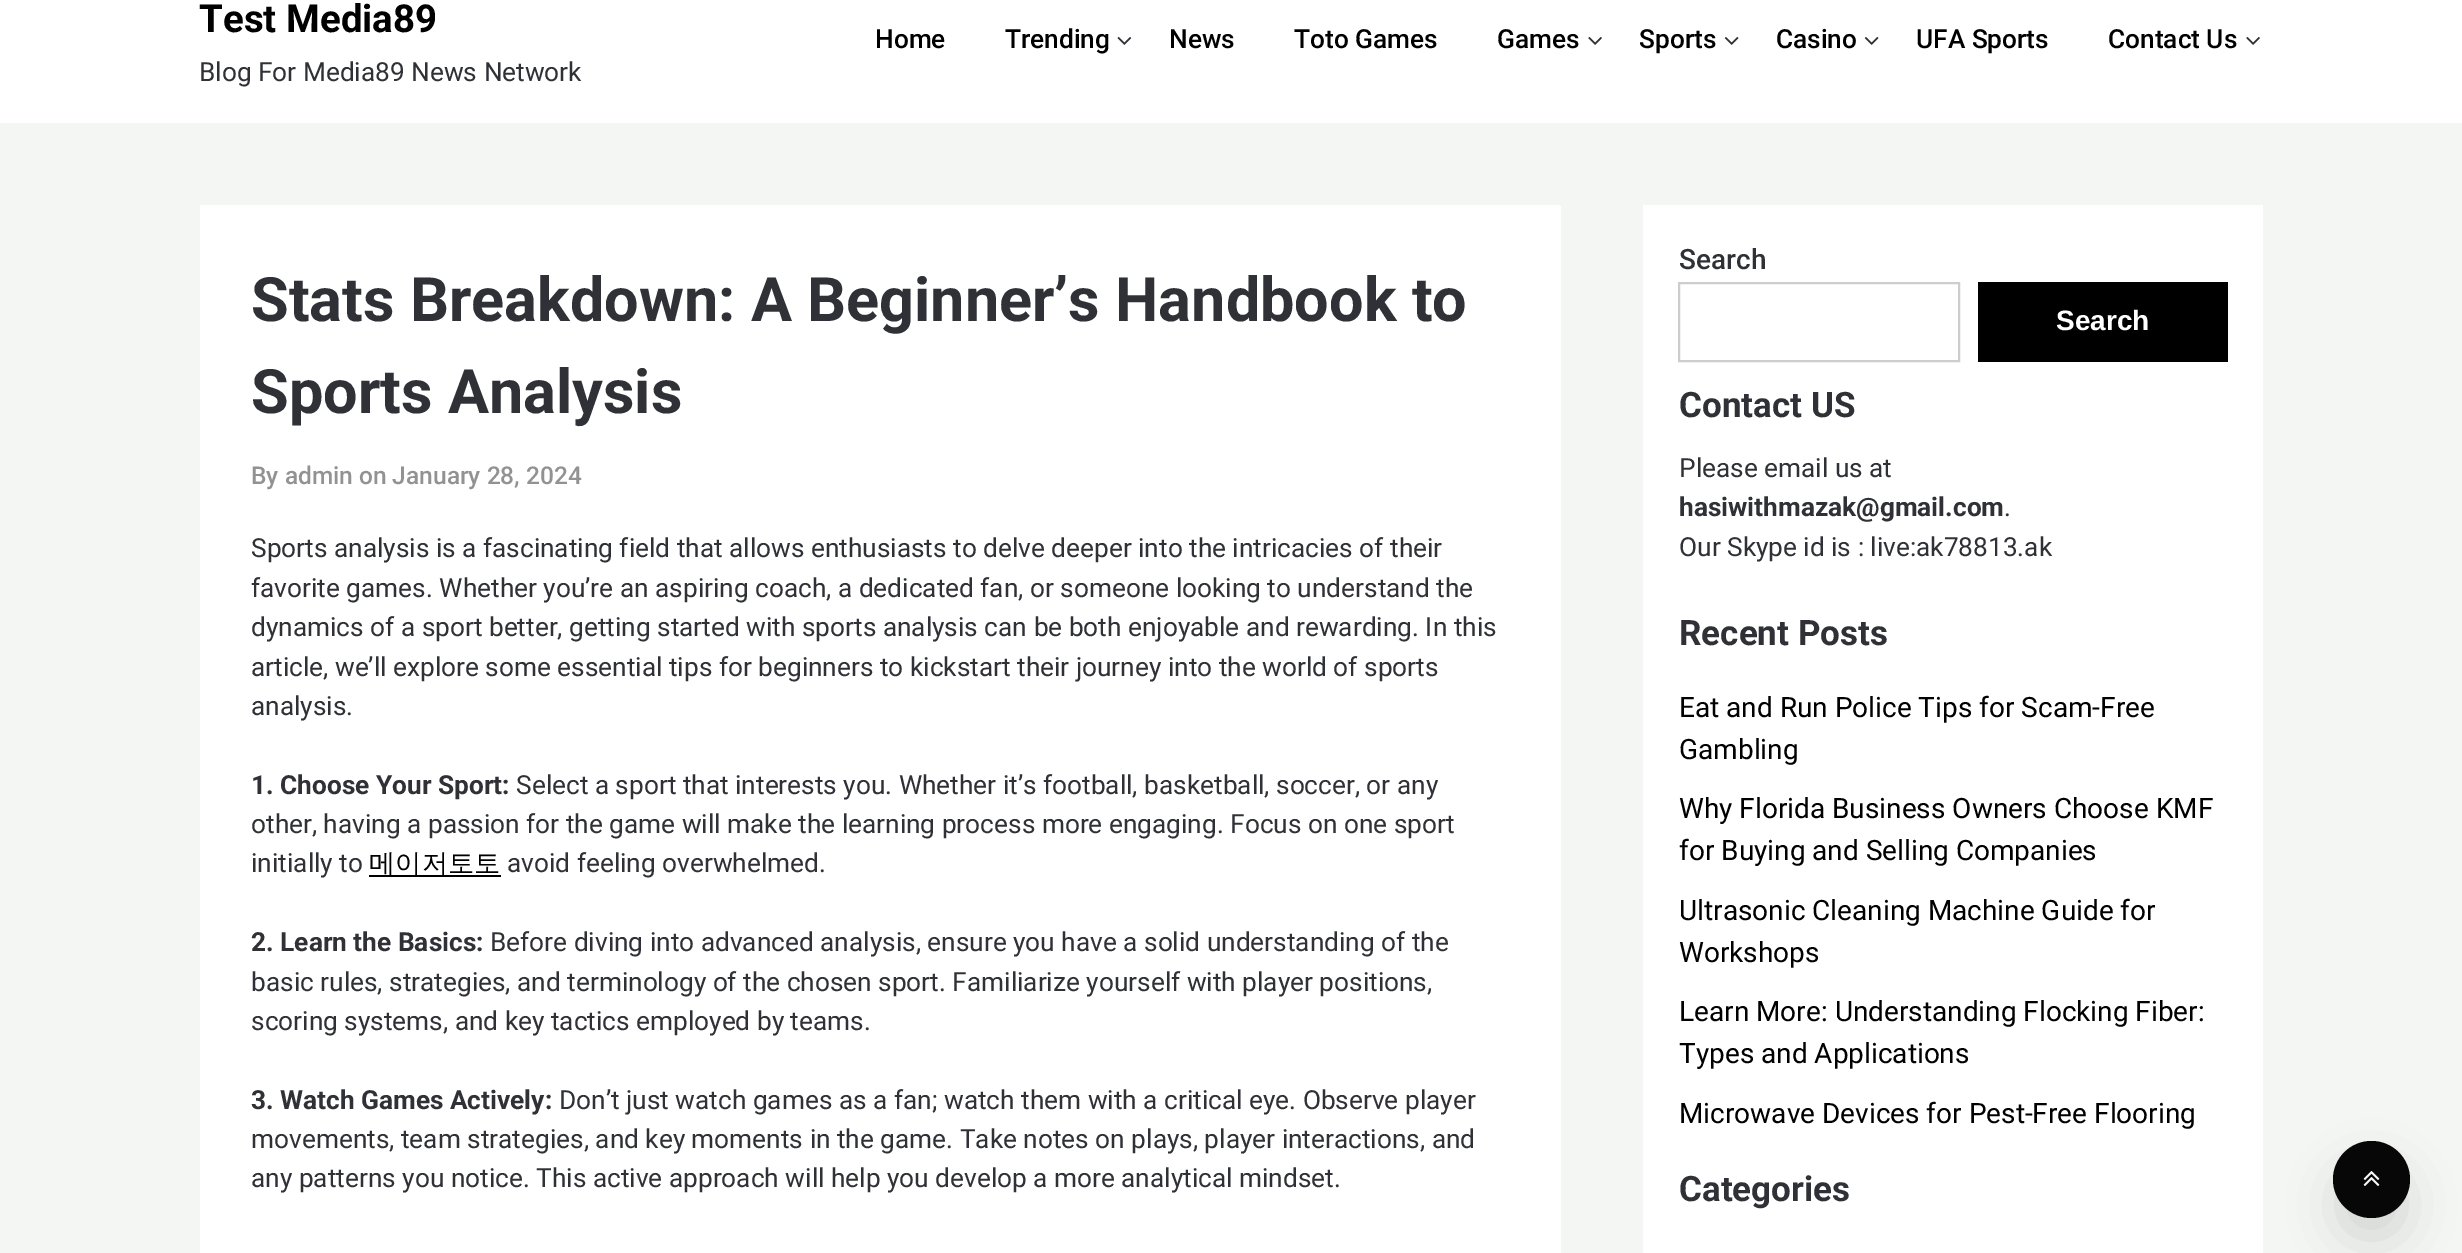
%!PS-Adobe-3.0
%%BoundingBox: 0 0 2462 1253
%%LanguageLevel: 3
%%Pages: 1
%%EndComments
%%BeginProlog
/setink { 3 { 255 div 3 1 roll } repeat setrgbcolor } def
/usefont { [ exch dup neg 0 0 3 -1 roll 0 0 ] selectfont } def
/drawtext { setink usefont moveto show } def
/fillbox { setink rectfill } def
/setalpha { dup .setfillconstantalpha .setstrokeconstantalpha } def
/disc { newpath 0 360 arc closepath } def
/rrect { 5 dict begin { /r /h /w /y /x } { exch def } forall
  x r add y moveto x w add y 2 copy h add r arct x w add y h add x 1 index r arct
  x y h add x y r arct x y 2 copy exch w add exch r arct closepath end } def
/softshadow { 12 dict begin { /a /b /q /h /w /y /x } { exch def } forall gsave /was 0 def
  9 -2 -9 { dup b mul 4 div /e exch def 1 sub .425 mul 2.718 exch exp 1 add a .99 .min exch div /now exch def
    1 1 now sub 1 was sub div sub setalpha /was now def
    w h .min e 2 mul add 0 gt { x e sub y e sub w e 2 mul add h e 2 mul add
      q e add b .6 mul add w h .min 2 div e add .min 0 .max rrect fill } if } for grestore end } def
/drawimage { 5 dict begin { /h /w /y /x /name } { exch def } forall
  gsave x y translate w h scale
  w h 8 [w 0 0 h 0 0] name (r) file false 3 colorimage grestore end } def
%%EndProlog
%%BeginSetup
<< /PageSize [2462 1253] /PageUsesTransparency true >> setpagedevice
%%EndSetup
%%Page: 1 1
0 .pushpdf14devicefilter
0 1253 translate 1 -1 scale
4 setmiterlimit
0 0 2462 1253 244 246 243 fillbox
0 0 2462 123 255 255 255 fillbox
(Test Media89) 199 32 /Roboto-Bold 38.5 0 0 0 drawtext
(Blog For Media89 News Network) 199 81 /Roboto-Regular 26.25 47 49 54 drawtext
(Home) 875 48 /Roboto-Medium 26.25 0 0 0 drawtext
(Trending) 1005 48 /Roboto-Medium 26.25 0 0 0 drawtext
(assets/img1.rgb) 1117 37 15 8 drawimage
(News) 1169 48 /Roboto-Medium 26.25 0 0 0 drawtext
(Toto Games) 1294 48 /Roboto-Medium 26.25 0 0 0 drawtext
(Games) 1497 48 /Roboto-Medium 26.25 0 0 0 drawtext
(assets/img2.rgb) 1588 37 14 8 drawimage
(Sports) 1639 48 /Roboto-Medium 26.25 0 0 0 drawtext
(assets/img3.rgb) 1724 37 15 8 drawimage
(Casino) 1776 48 /Roboto-Medium 26.25 0 0 0 drawtext
(assets/img3.rgb) 1864 37 15 8 drawimage
(UFA Sports) 1916 48 /Roboto-Medium 26.25 0 0 0 drawtext
(Contact Us) 2108 48 /Roboto-Medium 26.25 0 0 0 drawtext
(assets/img2.rgb) 2246 37 14 8 drawimage
255 255 255 setink
200 205 1361 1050 2 rrect fill
(Stats Breakdown: A Beginner’s Handbook to) 251 321 /Roboto-Bold 61.25 47 49 54 drawtext
(Sports Analysis) 251 413 /Roboto-Bold 61.25 47 49 54 drawtext
(By admin on January 28, 2024) 251 484 /Roboto-Medium 24.5 146 146 146 drawtext
(Sports analysis is a fascinating field that allows enthusiasts to delve deeper into the intricacies of their) 251 557 /Roboto-Regular 26.25 47 49 54 drawtext
(favorite games. Whether you’re an aspiring coach, a dedicated fan, or someone looking to understand the) 251 597 /Roboto-Regular 26.25 47 49 54 drawtext
(dynamics of a sport better, getting started with sports analysis can be both enjoyable and rewarding. In this) 251 636 /Roboto-Regular 26.25 47 49 54 drawtext
(article, we’ll explore some essential tips for beginners to kickstart their journey into the world of sports) 251 676 /Roboto-Regular 26.25 47 49 54 drawtext
(analysis.) 251 715 /Roboto-Regular 26.25 47 49 54 drawtext
(1. Choose Your Sport:) 251 794 /Roboto-Bold 26.25 47 49 54 drawtext
(Select a sport that interests you. Whether it’s football, basketball, soccer, or any) 516 794 /Roboto-Regular 26.25 47 49 54 drawtext
(other, having a passion for the game will make the learning process more engaging. Focus on one sport) 251 833 /Roboto-Regular 26.25 47 49 54 drawtext
(initially to) 251 872 /Roboto-Regular 26.25 47 49 54 drawtext
369 875 132 2 0 0 0 fillbox
(메이저토토) 369 872 /WenQuanYiZenHei-Medium 26.25 0 0 0 drawtext
(avoid feeling overwhelmed.) 507 872 /Roboto-Regular 26.25 47 49 54 drawtext
(2. Learn the Basics:) 251 951 /Roboto-Bold 26.25 47 49 54 drawtext
(Before diving into advanced analysis, ensure you have a solid understanding of the) 490 951 /Roboto-Regular 26.25 47 49 54 drawtext
(basic rules, strategies, and terminology of the chosen sport. Familiarize yourself with player positions,) 251 991 /Roboto-Regular 26.25 47 49 54 drawtext
(scoring systems, and key tactics employed by teams.) 251 1030 /Roboto-Regular 26.25 47 49 54 drawtext
(3. Watch Games Actively:) 251 1109 /Roboto-Bold 26.25 47 49 54 drawtext
(Don’t just watch games as a fan; watch them with a critical eye. Observe player) 559 1109 /Roboto-Regular 26.25 47 49 54 drawtext
(movements, team strategies, and key moments in the game. Take notes on plays, player interactions, and) 251 1148 /Roboto-Regular 26.25 47 49 54 drawtext
(any patterns you notice. This active approach will help you develop a more analytical mindset.) 251 1187 /Roboto-Regular 26.25 47 49 54 drawtext
1643 205 620 1048 255 255 255 fillbox
(Search) 1679 269 /Roboto-Medium 28 47 49 54 drawtext
205 205 205 setink
2 setlinewidth
1679 283 280 78 rectstroke
1978 282 250 80 0 0 0 fillbox
(Search) 2056 330 /LiberationSans-Bold 28 255 255 255 drawtext
(Contact US) 1679 417 /Roboto-Bold 35 47 49 54 drawtext
(Please email us at) 1679 477 /Roboto-Regular 26.25 47 49 54 drawtext
(hasiwithmazak@gmail.com) 1679 516 /Roboto-Bold 26.25 47 49 54 drawtext
(.) 2004 516 /Roboto-Regular 26.25 47 49 54 drawtext
(Our Skype id is : live:ak78813.ak) 1679 556 /Roboto-Regular 26.25 47 49 54 drawtext
(Recent Posts) 1679 645 /Roboto-Bold 35 47 49 54 drawtext
(Eat and Run Police Tips for Scam-Free) 1679 717 /Roboto-Regular 28 0 0 0 drawtext
(Gambling) 1679 759 /Roboto-Regular 28 0 0 0 drawtext
(Why Florida Business Owners Choose KMF) 1679 818 /Roboto-Regular 28 0 0 0 drawtext
(for Buying and Selling Companies) 1679 860 /Roboto-Regular 28 0 0 0 drawtext
(Ultrasonic Cleaning Machine Guide for) 1679 920 /Roboto-Regular 28 0 0 0 drawtext
(Workshops) 1679 962 /Roboto-Regular 28 0 0 0 drawtext
(Learn More: Understanding Flocking Fiber:) 1679 1021 /Roboto-Regular 28 0 0 0 drawtext
(Types and Applications) 1679 1063 /Roboto-Regular 28 0 0 0 drawtext
(Microwave Devices for Pest-Free Flooring) 1679 1123 /Roboto-Regular 28 0 0 0 drawtext
(Categories) 1679 1201 /Roboto-Bold 35 47 49 54 drawtext
20 23 26 setink
2340 1173 63 63 31.5 24.5 0.15 softshadow
7 7 7 setink
2371.5 1179.5 38.5 disc fill
(assets/img4.rgb) 2363 1171 17 15 drawimage
.poppdf14devicefilter showpage
%%EOF
